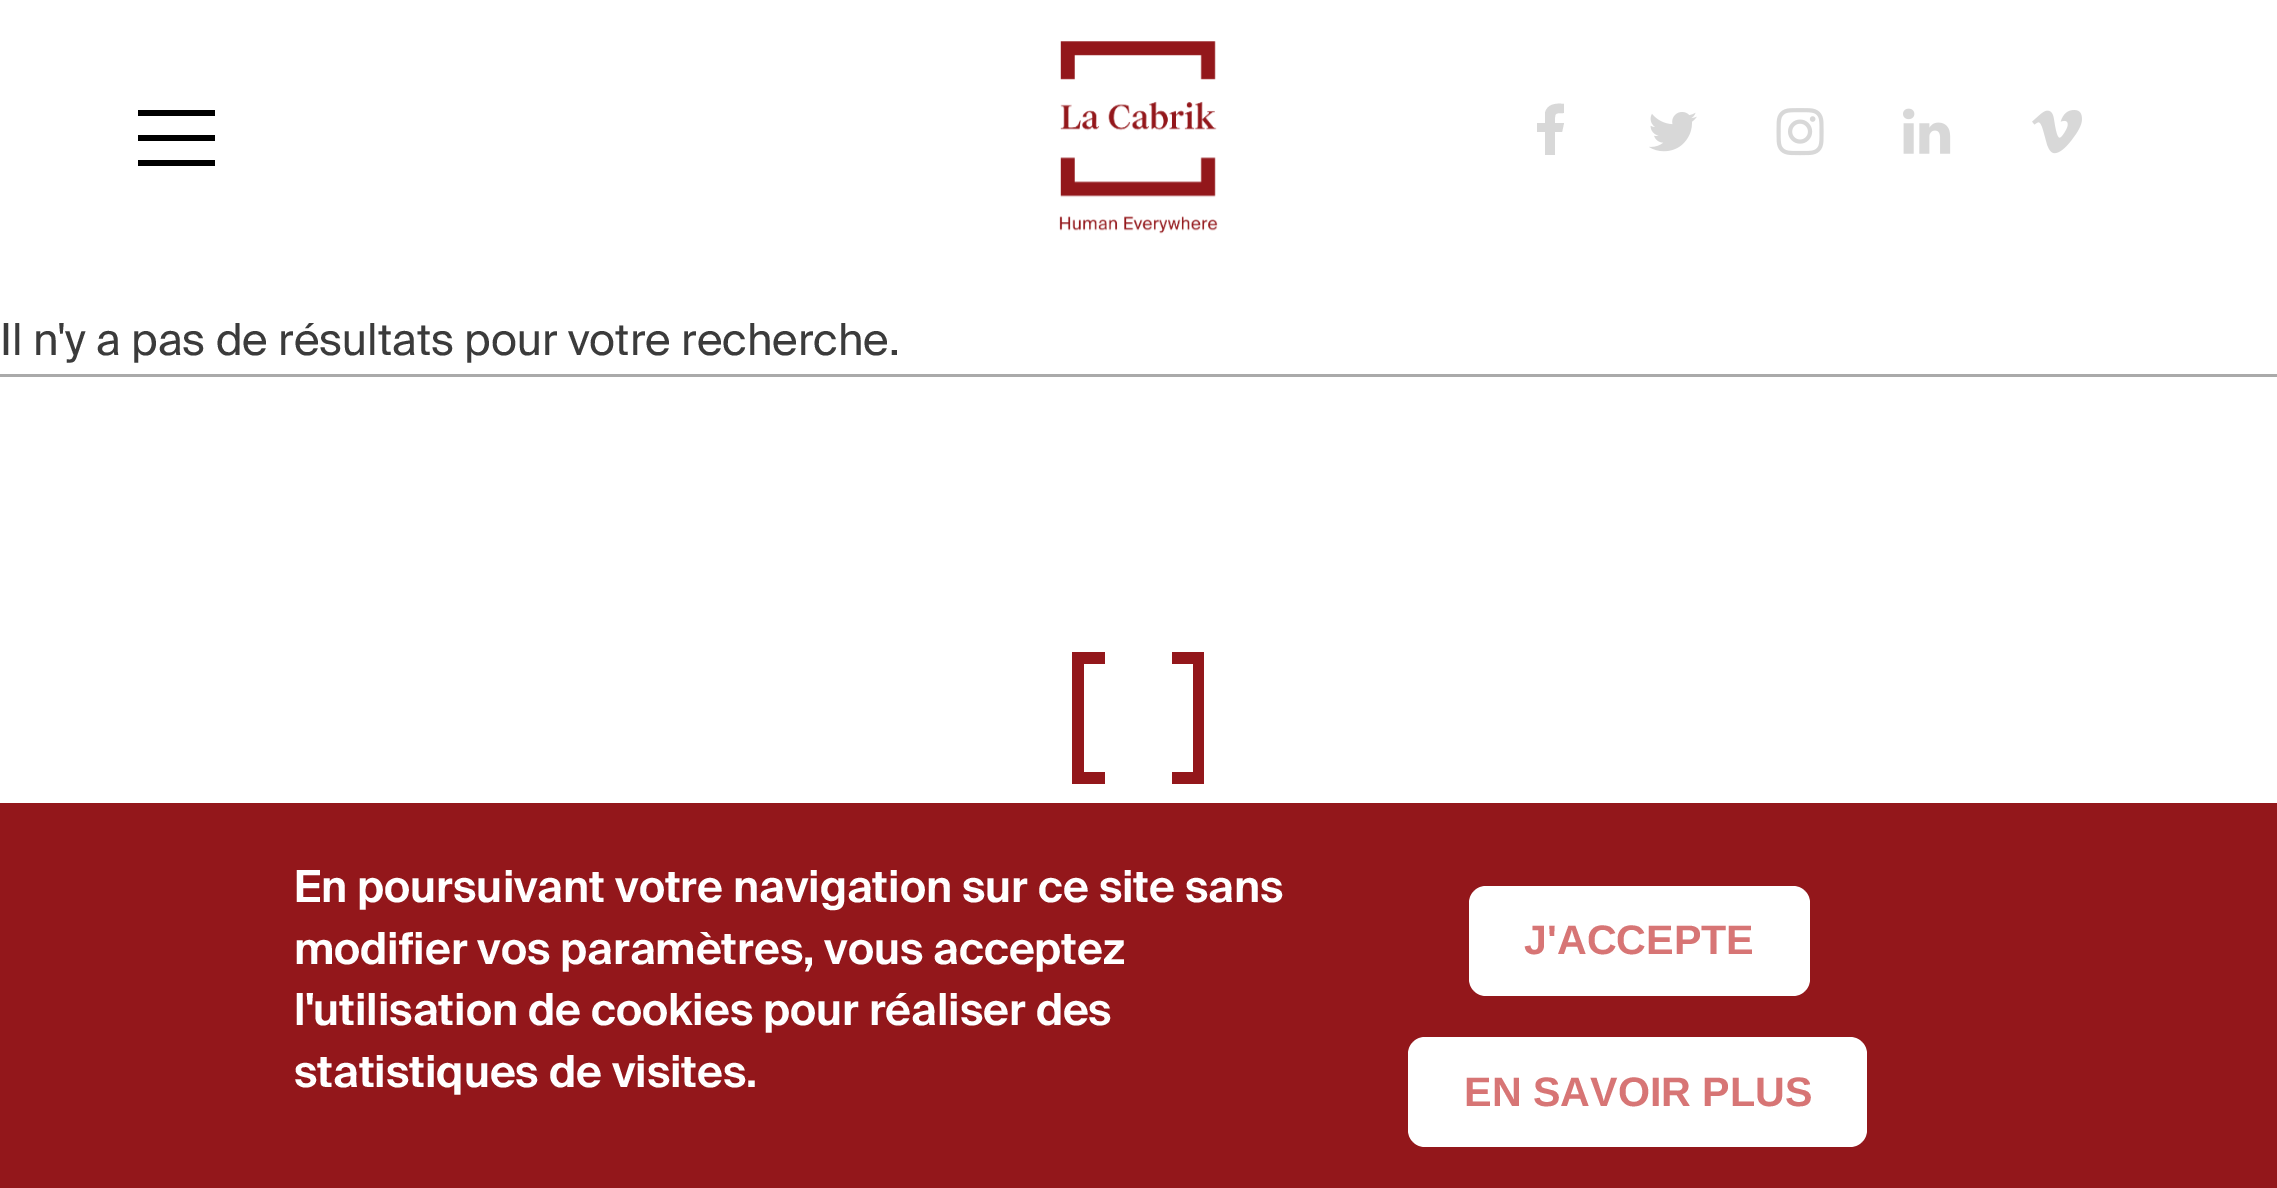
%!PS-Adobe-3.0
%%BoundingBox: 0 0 2277 1188
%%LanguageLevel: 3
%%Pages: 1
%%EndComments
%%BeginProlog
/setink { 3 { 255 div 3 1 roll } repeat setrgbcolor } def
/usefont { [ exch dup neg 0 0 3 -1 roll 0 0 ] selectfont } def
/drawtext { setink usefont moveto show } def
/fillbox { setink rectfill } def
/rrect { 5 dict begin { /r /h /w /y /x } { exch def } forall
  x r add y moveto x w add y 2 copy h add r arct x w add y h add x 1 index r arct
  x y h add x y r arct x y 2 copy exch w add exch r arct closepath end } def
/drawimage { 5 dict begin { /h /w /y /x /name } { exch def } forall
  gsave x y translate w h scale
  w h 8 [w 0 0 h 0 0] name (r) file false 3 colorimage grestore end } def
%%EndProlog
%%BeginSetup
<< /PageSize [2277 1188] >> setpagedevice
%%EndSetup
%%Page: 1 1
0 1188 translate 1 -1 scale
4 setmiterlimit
0 0 2277 1188 255 255 255 fillbox
138 110 77 6 0 0 0 fillbox
138 135 77 6 0 0 0 fillbox
138 160 77 6 0 0 0 fillbox
(assets/img1.rgb) 1059 41 159 193 drawimage
216 216 216 setink
1564 104 moveto 1564 113 lineto 1554 113 1555 113 1555 123 curveto 1564 123 lineto 1562 132 lineto 1555 132 lineto 1555 155 lineto 1545 155 lineto 1545 132 lineto 1537 132 lineto 1537 123 lineto 1545 123 lineto 1545 113 lineto 1547 104 1556 103 1564 104 curveto closepath fill
(assets/img2.rgb) 1649 112 48 40 drawimage
(assets/img3.rgb) 1776 108 48 48 drawimage
(assets/img4.rgb) 1903 108 48 46 drawimage
(assets/img5.rgb) 2032 110 50 44 drawimage
(Il n'y a pas de résultats pour votre recherche.) 0 355 /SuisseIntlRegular-Regular 44 59 59 59 drawtext
0 374 2277 3 170 170 170 fillbox
147 23 27 setink
1072 784 moveto 1072 652 lineto 1105 652 lineto 1105 664 lineto 1084 664 lineto 1084 772 lineto 1105 772 lineto 1105 784 lineto closepath 1204 652 moveto 1204 784 lineto 1172 784 lineto 1172 772 lineto 1193 772 lineto 1193 664 lineto 1172 664 lineto 1172 652 lineto closepath fill
0 803 2277 385 147 23 27 fillbox
(En poursuivant votre navigation sur ce site sans) 294 902 /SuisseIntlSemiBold-SemiBold 44 255 255 255 drawtext
(modifier vos paramètres, vous acceptez) 294 964 /SuisseIntlSemiBold-SemiBold 44 255 255 255 drawtext
(l'utilisation de cookies pour réaliser des) 294 1025 /SuisseIntlSemiBold-SemiBold 44 255 255 255 drawtext
(statistiques de visites.) 294 1087 /SuisseIntlSemiBold-SemiBold 44 255 255 255 drawtext
1469 886 341 110 17 rrect fill
(J'ACCEPTE) 1524 954 /LiberationSans-Bold 41.25 215 117 117 drawtext
255 255 255 setink
1408 1037 459 110 17 rrect fill
(EN SAVOIR PLUS) 1464 1106 /LiberationSans-Bold 41.25 215 117 117 drawtext
showpage
%%EOF
